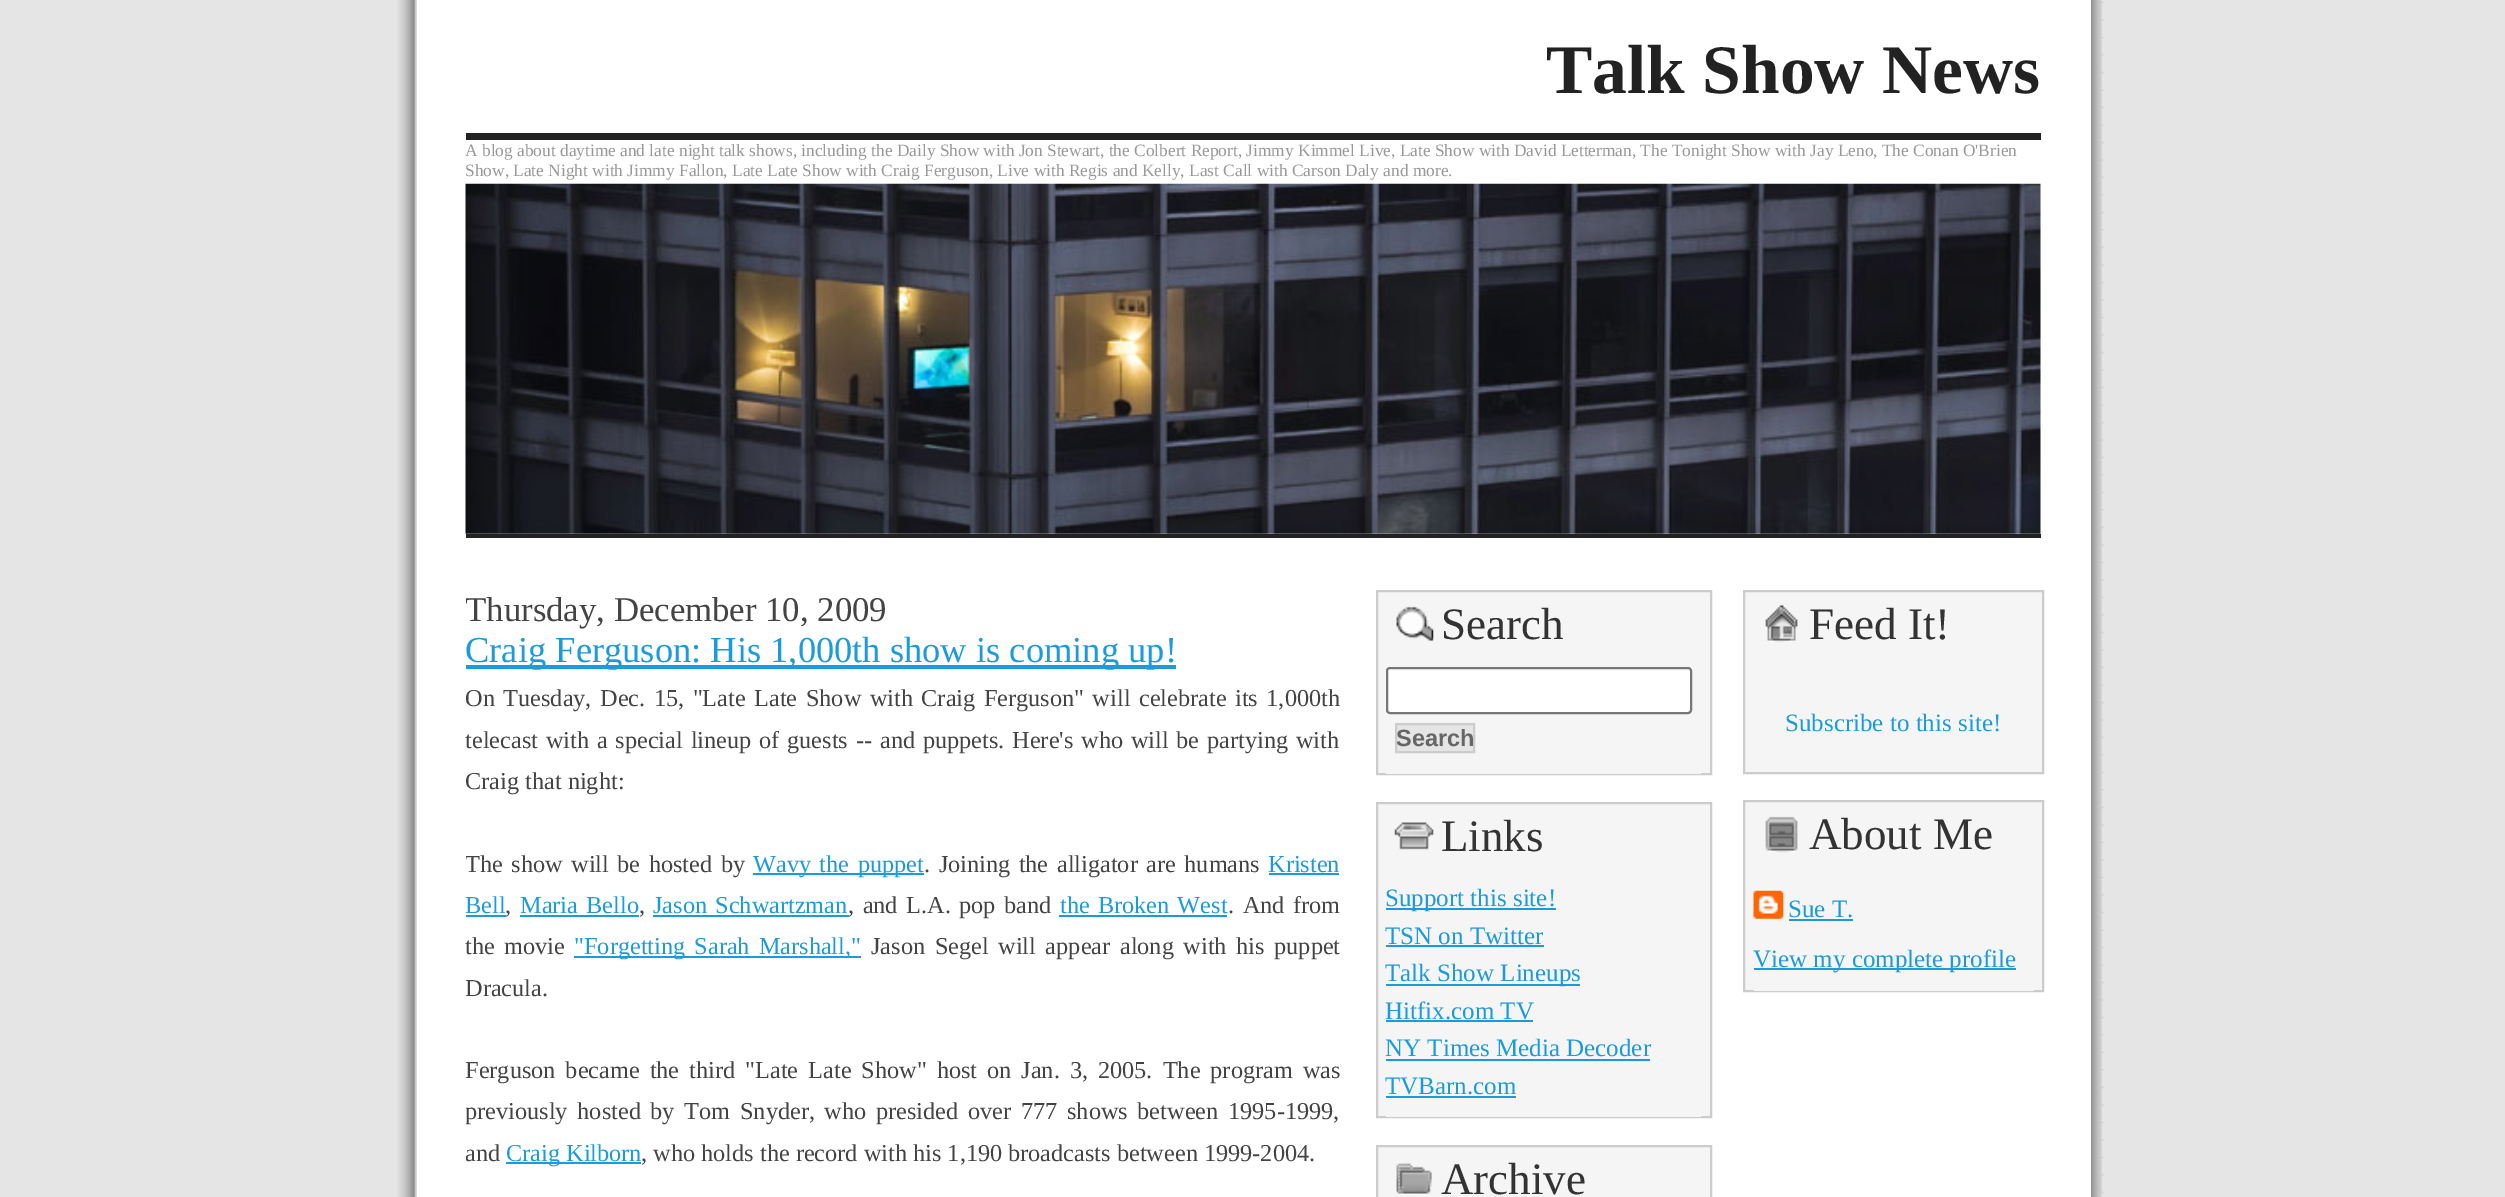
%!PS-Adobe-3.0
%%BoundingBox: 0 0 2505 1197
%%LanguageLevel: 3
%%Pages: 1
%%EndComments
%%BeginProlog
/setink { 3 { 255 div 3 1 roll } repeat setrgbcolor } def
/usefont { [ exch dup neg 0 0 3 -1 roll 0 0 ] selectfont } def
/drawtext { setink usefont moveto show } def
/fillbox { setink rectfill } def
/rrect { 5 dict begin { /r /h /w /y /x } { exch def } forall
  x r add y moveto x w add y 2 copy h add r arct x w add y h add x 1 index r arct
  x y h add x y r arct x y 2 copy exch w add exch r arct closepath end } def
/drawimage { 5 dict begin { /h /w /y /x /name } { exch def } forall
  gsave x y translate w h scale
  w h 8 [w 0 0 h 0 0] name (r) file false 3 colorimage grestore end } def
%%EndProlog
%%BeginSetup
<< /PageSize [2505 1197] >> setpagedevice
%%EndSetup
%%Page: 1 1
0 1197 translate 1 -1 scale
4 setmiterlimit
0 0 2505 1197 229 229 229 fillbox
(assets/img1.rgb) 397 0 1707 1197 drawimage
417 0 1674 1197 255 255 255 fillbox
466 534 1575 4 34 34 34 fillbox
(assets/img2.rgb) 465 183 1576 351 drawimage
466 133 1575 7 34 34 34 fillbox
(Talk Show News) 1546 93 /LiberationSerif-Bold 69.5 34 34 34 drawtext
(A blog about daytime and late night talk shows, including the Daily Show with Jon Stewart, the Colbert Report, Jimmy Kimmel Live, Late Show with David Letterman, The Tonight Show with Jay Leno, The Conan O'Brien) 465 156 /LiberationSerif-Regular 17.35 153 153 153 drawtext
(Show, Late Night with Jimmy Fallon, Late Late Show with Craig Ferguson, Live with Regis and Kelly, Last Call with Carson Daly and more.) 465 176 /LiberationSerif-Regular 17.35 153 153 153 drawtext
gsave
466 590 910 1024 rectclip
(Thursday, December 10, 2009) 465 621 /LiberationSerif-Regular 34.75 68 68 68 drawtext
grestore
466 665 710 4 28 155 220 fillbox
(Craig Ferguson: His 1,000th show is coming up!) 465 662 /LiberationSerif-Regular 36.5 28 155 220 drawtext
gsave
466 590 910 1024 rectclip
/LiberationSerif-Regular 24.3 usefont
68 68 68 setink
465 706 moveto 2.4 0 32 (On Tuesday, Dec. 15, "Late Late Show with Craig Ferguson" will celebrate its 1,000th) widthshow
grestore
/LiberationSerif-Regular 24.3 usefont
68 68 68 setink
465 748 moveto 1.75 0 32 (telecast with a special lineup of guests -- and puppets. Here's who will be partying with) widthshow
gsave
466 590 910 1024 rectclip
(Craig that night:) 465 789 /LiberationSerif-Regular 24.3 68 68 68 drawtext
465 872 moveto 2.4 0 32 (The show will be hosted by) widthshow
grestore
753 873 171 2 28 155 220 fillbox
753 872 moveto 2.4 0 32 (Wavy the puppet) widthshow
68 68 68 setink
924 872 moveto 2.4 0 32 (. Joining the alligator are humans) widthshow
(Kristen) 1268 872 /LiberationSerif-Regular 24.3 28 155 220 drawtext
1269 873 70 2 28 155 220 fillbox
(Bell) 465 913 /LiberationSerif-Regular 24.3 28 155 220 drawtext
466 915 40 2 28 155 220 fillbox
(,) 505 913 /LiberationSerif-Regular 24.3 68 68 68 drawtext
28 155 220 setink
520 913 moveto 2 0 32 (Maria Bello) widthshow
520 915 119 2 28 155 220 fillbox
(,) 639 913 /LiberationSerif-Regular 24.3 68 68 68 drawtext
28 155 220 setink
653 913 moveto 2 0 32 (Jason Schwartzman) widthshow
653 915 196 2 28 155 220 fillbox
68 68 68 setink
848 913 moveto 2.4 0 32 (, and L.A. pop band) widthshow
28 155 220 setink
1060 913 moveto 2 0 32 (the Broken West) widthshow
1059 915 168 2 28 155 220 fillbox
68 68 68 setink
1228 913 moveto 2.4 0 32 (. And from) widthshow
465 954 moveto 3.5 0 32 (the movie) widthshow
574 956 287 2 28 155 220 fillbox
574 954 moveto 3 0 32 ("Forgetting Sarah Marshall,") widthshow
68 68 68 setink
871 954 moveto 3.5 0 32 (Jason Segel will appear along with his puppet) widthshow
(Dracula.) 465 996 /LiberationSerif-Regular 24.3 68 68 68 drawtext
465 1078 moveto 3.9 0 32 (Ferguson became the third "Late Late Show" host on Jan. 3, 2005. The program was) widthshow
gsave
466 590 910 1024 rectclip
465 1119 moveto 3.6 0 32 (previously hosted by Tom Snyder, who presided over 777 shows between 1995-1999,) widthshow
(and) 465 1161 /LiberationSerif-Regular 24.3 68 68 68 drawtext
grestore
506 1162 135 2 28 155 220 fillbox
(Craig Kilborn) 506 1161 /LiberationSerif-Regular 24.3 28 155 220 drawtext
(, who holds the record with his 1,190 broadcasts between 1999-2004.) 641 1161 /LiberationSerif-Regular 24.3 68 68 68 drawtext
245 245 245 setink
1377 591 moveto 1711 591 lineto 1711 774 lineto 1377 774 lineto closepath gsave fill grestore
204 204 204 setink
2 setlinewidth
stroke
(assets/img3.rgb) 1396 606 38 36 drawimage
(Search) 1441 639 /LiberationSerif-Regular 45 51 51 51 drawtext
1386 773 315 1 245 245 245 fillbox
255 255 255 setink
1387 668 304 45 3 rrect gsave fill grestore
118 118 118 setink
stroke
229 229 229 setink
1396 724 moveto 1474 724 lineto 1474 752 lineto 1396 752 lineto closepath gsave fill grestore
204 204 204 setink
stroke
gsave
1397 725 77 26 rectclip
(Search) 1396 746 /LiberationSans-Bold 23.5 102 102 102 drawtext
grestore
245 245 245 setink
1377 803 moveto 1711 803 lineto 1711 1117 lineto 1377 1117 lineto closepath gsave fill grestore
204 204 204 setink
stroke
(assets/img4.rgb) 1394 822 40 28 drawimage
(Links) 1441 851 /LiberationSerif-Regular 45 51 51 51 drawtext
1386 1116 315 1 245 245 245 fillbox
1386 908 170 2 28 155 220 fillbox
(Support this site!) 1385 906 /LiberationSerif-Regular 25 28 155 220 drawtext
(TSN on Twitter) 1385 944 /LiberationSerif-Regular 25 28 155 220 drawtext
1386 945 158 2 28 155 220 fillbox
1386 984 194 2 28 155 220 fillbox
(Talk Show Lineups) 1385 981 /LiberationSerif-Regular 25 28 155 220 drawtext
(Hitfix.com TV) 1385 1019 /LiberationSerif-Regular 25 28 155 220 drawtext
1386 1020 147 2 28 155 220 fillbox
(NY Times Media Decoder) 1385 1056 /LiberationSerif-Regular 25 28 155 220 drawtext
1386 1059 264 2 28 155 220 fillbox
(TVBarn.com) 1385 1094 /LiberationSerif-Regular 25 28 155 220 drawtext
1386 1096 130 2 28 155 220 fillbox
245 245 245 setink
1377 1146 moveto 1711 1146 lineto 1711 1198 lineto 1377 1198 lineto closepath gsave fill grestore
204 204 204 setink
stroke
(assets/img5.rgb) 1396 1163 36 32 drawimage
(Archive) 1441 1194 /LiberationSerif-Regular 45 51 51 51 drawtext
245 245 245 setink
1744 591 moveto 2043 591 lineto 2043 773 lineto 1744 773 lineto closepath gsave fill grestore
204 204 204 setink
stroke
(assets/img6.rgb) 1765 605 33 38 drawimage
(Feed It!) 1809 639 /LiberationSerif-Regular 45 51 51 51 drawtext
(Subscribe to this site!) 1785 731 /LiberationSerif-Regular 25 28 155 220 drawtext
245 245 245 setink
1744 801 moveto 2043 801 lineto 2043 991 lineto 1744 991 lineto closepath gsave fill grestore
204 204 204 setink
stroke
(assets/img7.rgb) 1765 816 33 37 drawimage
(About Me) 1809 849 /LiberationSerif-Regular 45 51 51 51 drawtext
1754 990 280 1 245 245 245 fillbox
(assets/img8.rgb) 1753 890 31 29 drawimage
(Sue T.) 1788 917 /LiberationSerif-Regular 25 28 155 220 drawtext
1789 919 64 2 28 155 220 fillbox
1754 968 262 2 28 155 220 fillbox
(View my complete profile) 1753 967 /LiberationSerif-Regular 25 28 155 220 drawtext
showpage
%%EOF
